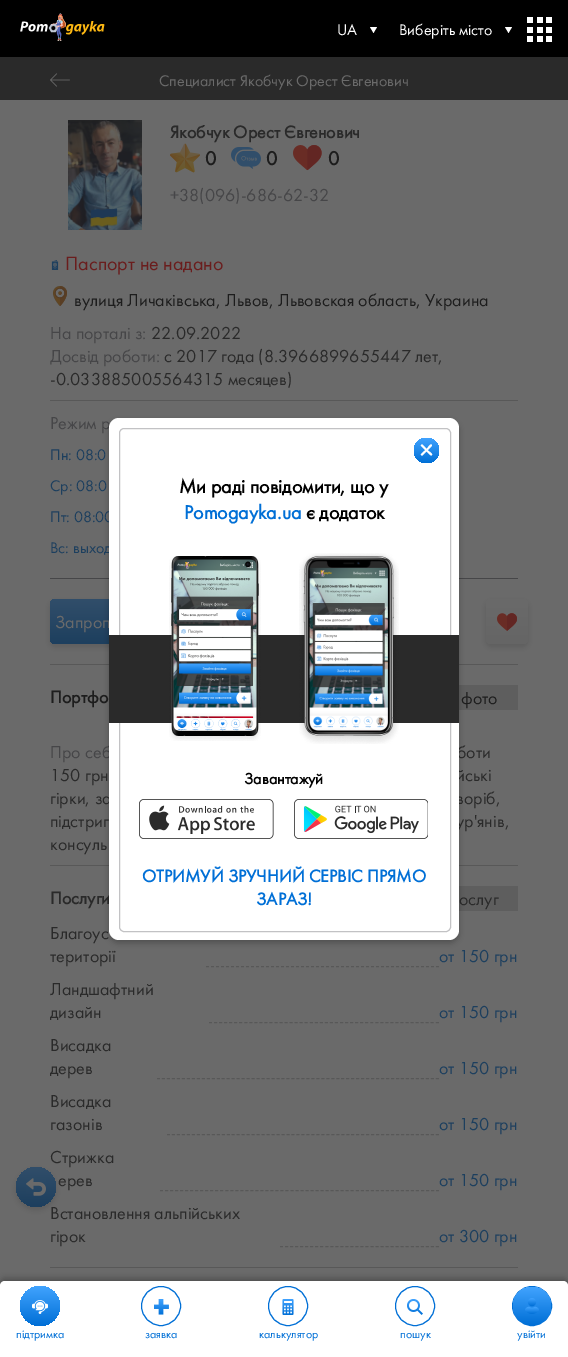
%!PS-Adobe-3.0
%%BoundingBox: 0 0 568 1357
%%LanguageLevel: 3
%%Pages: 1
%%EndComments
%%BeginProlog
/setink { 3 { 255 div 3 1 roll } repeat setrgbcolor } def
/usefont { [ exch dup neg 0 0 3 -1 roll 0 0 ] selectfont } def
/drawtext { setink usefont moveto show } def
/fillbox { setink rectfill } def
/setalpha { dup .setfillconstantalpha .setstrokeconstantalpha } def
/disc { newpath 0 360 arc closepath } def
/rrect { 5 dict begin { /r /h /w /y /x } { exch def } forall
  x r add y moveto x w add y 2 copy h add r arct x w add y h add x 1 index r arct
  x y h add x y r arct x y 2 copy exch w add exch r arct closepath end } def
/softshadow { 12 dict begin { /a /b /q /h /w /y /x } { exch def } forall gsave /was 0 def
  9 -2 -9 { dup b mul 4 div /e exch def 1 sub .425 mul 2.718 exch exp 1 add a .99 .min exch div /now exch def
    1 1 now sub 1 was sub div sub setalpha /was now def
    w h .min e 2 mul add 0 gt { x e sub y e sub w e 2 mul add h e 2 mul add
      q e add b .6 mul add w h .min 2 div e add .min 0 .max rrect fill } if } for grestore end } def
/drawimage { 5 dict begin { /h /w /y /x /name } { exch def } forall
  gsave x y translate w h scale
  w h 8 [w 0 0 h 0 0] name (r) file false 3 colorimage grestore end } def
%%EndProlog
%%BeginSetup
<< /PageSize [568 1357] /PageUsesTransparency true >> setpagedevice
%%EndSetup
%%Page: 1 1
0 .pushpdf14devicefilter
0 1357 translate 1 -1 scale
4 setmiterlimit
0 0 568 1357 106 106 106 fillbox
0 0 568 57 0 0 0 fillbox
(assets/img1.rgb) 20 13 85 28 drawimage
255 255 255 setink
373.5 33 moveto 370 27 lineto 377 27 lineto closepath fill
(UA) 337 35 /FuturaPT-Regular 16 255 255 255 drawtext
508.5 33 moveto 505 27 lineto 512 27 lineto closepath fill
(Виберіть місто) 399 35 /FuturaPT-Regular 16 255 255 255 drawtext
(assets/img2.rgb) 527 17 25 25 drawimage
0 57 568 43 42 42 42 fillbox
(assets/img3.rgb) 50 73 20 14 drawimage
(Специалист Якобчук Орест Євгенович) 159 86 /FuturaPT-Regular 16 106 106 106 drawtext
29 29 29 setink
16 1170 40 40 20 3 0.16 softshadow
(Стрижка) 50 1163 /FuturaPT-Regular 18 42 42 42 drawtext
gsave 36 1187 20 disc clip newpath
<< /ShadingType 2 /ColorSpace /DeviceRGB /Coords [36 1167 36 1207] /Extend [true true] /Function << /FunctionType 2 /Domain [0 1] /C0 [0.192 0.306 0.416] /C1 [0.114 0.247 0.369] /N 1 >> >> shfill grestore
(assets/img4.rgb) 26 1178 20 18 drawimage
(assets/img5.rgb) 68 120 74 110 drawimage
(Якобчук Орест Євгенович) 170 138 /FuturaPT-Bold 18 42 42 42 drawtext
(assets/img6.rgb) 170 143 30 30 drawimage
(0) 205 165 /FuturaPT-Bold 20 29 29 29 drawtext
(assets/img7.rgb) 231 147 30 22 drawimage
(0) 266 165 /FuturaPT-Bold 20 29 29 29 drawtext
(assets/img8.rgb) 293 145 29 26 drawimage
(0) 328 165 /FuturaPT-Bold 20 29 29 29 drawtext
(+38\(096\)-686-62-32) 170 201 /FuturaPT-Regular 18 70 70 72 drawtext
50 400 468 1 88 88 88 fillbox
(assets/img9.rgb) 51 260 8 10 drawimage
(Паспорт не надано) 65 270 /FuturaPT-Regular 20 106 29 29 drawtext
(assets/img10.rgb) 53 286 14 20 drawimage
(вулиця Личаківська, Львов, Львовская область, Украина) 74 306 /FuturaPT-Regular 18 29 29 29 drawtext
(На порталі з:) 50 339 /FuturaPT-Regular 18 70 70 72 drawtext
(22.09.2022) 151 339 /FuturaPT-Regular 18 42 42 42 drawtext
(Досвід роботи:) 50 362 /FuturaPT-Regular 18 70 70 72 drawtext
(с 2017 года \(8.3966899655447 лет,) 164 362 /FuturaPT-Regular 18 42 42 42 drawtext
(-0.033885005564315 месяцев\)) 50 385 /FuturaPT-Regular 18 42 42 42 drawtext
50 578 468 1 70 70 72 fillbox
(Режим р) 50 429 /FuturaPT-Regular 18 70 70 72 drawtext
(Пн: 08:0) 50 460 /FuturaPT-Regular 16 29 63 94 drawtext
(Ср: 08:0) 50 491 /FuturaPT-Regular 16 29 63 94 drawtext
(Пт: 08:00) 50 522 /FuturaPT-Regular 16 29 63 94 drawtext
(Вс: выход) 50 553 /FuturaPT-Regular 16 29 63 94 drawtext
50 664 468 1 88 88 88 fillbox
29 29 29 setink
50 602 180 45 5 3 0.16 softshadow
gsave 50 599 180 45 5 rrect clip newpath
<< /ShadingType 2 /ColorSpace /DeviceRGB /Coords [140 599 140 644] /Extend [true true] /Function << /FunctionType 2 /Domain [0 1] /C0 [0.192 0.306 0.416] /C1 [0.114 0.247 0.369] /N 1 >> >> shfill grestore
(Запроп) 55 628 /FuturaPT-Regular 18 106 106 106 drawtext
29 29 29 setink
486 602 42 45 5 3 0.16 softshadow
gsave 486 599 42 45 5 rrect clip newpath
<< /ShadingType 2 /ColorSpace /DeviceRGB /Coords [507 599 507 644] /Extend [true true] /Function << /FunctionType 2 /Domain [0 1] /C0 [0.416 0.416 0.416] /C1 [0.396 0.396 0.396] /N 1 >> >> shfill grestore
(assets/img11.rgb) 497 613 20 18 drawimage
50 865 468 1 88 88 88 fillbox
(Портфо) 50 703 /FuturaPT-Bold 18 29 29 29 drawtext
459 685 59 25 94 94 94 fillbox
(фото) 461 704 /FuturaPT-Regular 18 29 29 29 drawtext
(Про себ) 50 758 /FuturaPT-Regular 18 70 70 72 drawtext
(боти) 457 758 /FuturaPT-Regular 18 42 42 42 drawtext
(150 грн) 50 781 /FuturaPT-Regular 18 42 42 42 drawtext
(йські) 456 781 /FuturaPT-Regular 18 42 42 42 drawtext
(гірки, за) 50 804 /FuturaPT-Regular 18 42 42 42 drawtext
(воріб,) 456 804 /FuturaPT-Regular 18 42 42 42 drawtext
(підстриг) 50 827 /FuturaPT-Regular 18 42 42 42 drawtext
(ур'янів,) 456 827 /FuturaPT-Regular 18 42 42 42 drawtext
(консуль) 50 850 /FuturaPT-Regular 18 42 42 42 drawtext
50 1267 468 1 88 88 88 fillbox
(Послуги) 50 904 /FuturaPT-Bold 18 42 42 42 drawtext
459 886 59 25 94 94 94 fillbox
(ослуг) 459 905 /FuturaPT-Regular 18 42 42 42 drawtext
(Благоус) 50 939 /FuturaPT-Regular 18 42 42 42 drawtext
(території) 50 962 /FuturaPT-Regular 18 42 42 42 drawtext
88 88 88 setink
[3 2] 0 setdash
206 966.5 moveto 439 966.5 lineto stroke
(от 150 грн) 439 962 /FuturaPT-Regular 18 29 63 94 drawtext
(Ландшафтний) 50 995 /FuturaPT-Regular 18 42 42 42 drawtext
(дизайн) 50 1018 /FuturaPT-Regular 18 42 42 42 drawtext
88 88 88 setink
[3 2.04] 0 setdash
209 1022.5 moveto 439 1022.5 lineto stroke
(от 150 грн) 439 1018 /FuturaPT-Regular 18 29 63 94 drawtext
(Висадка) 50 1051 /FuturaPT-Regular 18 42 42 42 drawtext
(дерев) 50 1074 /FuturaPT-Regular 18 42 42 42 drawtext
88 88 88 setink
[3 1.98] 0 setdash
157 1078.5 moveto 439 1078.5 lineto stroke
(от 150 грн) 439 1074 /FuturaPT-Regular 18 29 63 94 drawtext
(Висадка) 50 1107 /FuturaPT-Regular 18 42 42 42 drawtext
(газонів) 50 1130 /FuturaPT-Regular 18 42 42 42 drawtext
88 88 88 setink
167 1134.5 moveto 439 1134.5 lineto stroke
(от 150 грн) 439 1130 /FuturaPT-Regular 18 29 63 94 drawtext
(ерев) 58 1186 /FuturaPT-Regular 18 42 42 42 drawtext
88 88 88 setink
[3 2.02] 0 setdash
160 1190.5 moveto 439 1190.5 lineto stroke
(от 150 грн) 439 1186 /FuturaPT-Regular 18 29 63 94 drawtext
(Встановлення альпійських) 50 1219 /FuturaPT-Regular 18 42 42 42 drawtext
(гірок) 50 1242 /FuturaPT-Regular 18 42 42 42 drawtext
88 88 88 setink
[3 2.03] 0 setdash
280 1246.5 moveto 439 1246.5 lineto stroke
(от 300 грн) 439 1242 /FuturaPT-Regular 18 29 63 94 drawtext
0 0 0 setink
0 1278 568 76 5 3 0.25 softshadow
255 255 255 setink
5 1281 moveto 563 1281 lineto 566 1281 568 1283 568 1286 curveto 568 1357 lineto 0 1357 lineto 0 1286 lineto 0 1283 2 1281 5 1281 curveto closepath fill
gsave 40 1306 20 disc clip newpath
<< /ShadingType 2 /ColorSpace /DeviceRGB /Coords [40 1286 40 1326] /Extend [true true] /Function << /FunctionType 2 /Domain [0 1] /C0 [0.255 0.639 0.996] /C1 [0 0.435 0.839] /N 1 >> >> shfill grestore
(assets/img12.rgb) 32 1300 16 14 drawimage
(підтримка) 16 1338 /FuturaPT-Regular 12 0 111 214 drawtext
[] 0 setdash
161 1306 19.5 disc stroke
(assets/img13.rgb) 154 1299 15 16 drawimage
(заявка) 145 1338 /FuturaPT-Regular 12 0 111 214 drawtext
288 1306 19.5 disc stroke
(assets/img14.rgb) 282 1299 12 16 drawimage
(калькулятор) 259 1338 /FuturaPT-Regular 12 0 111 214 drawtext
415 1306 19.5 disc stroke
(assets/img15.rgb) 407 1299 16 16 drawimage
(пошук) 400 1338 /FuturaPT-Regular 12 0 111 214 drawtext
532 1306 19.5 disc stroke
gsave 532 1306 19 disc clip newpath
<< /ShadingType 2 /ColorSpace /DeviceRGB /Coords [532 1287 532 1325] /Extend [true true] /Function << /FunctionType 2 /Domain [0 1] /C0 [0.255 0.639 0.996] /C1 [0 0.435 0.839] /N 1 >> >> shfill grestore
(assets/img16.rgb) 525 1298 14 16 drawimage
(увійти) 517 1338 /FuturaPT-Regular 12 0 111 214 drawtext
0 0 0 setink
109 421 350 522 10 3 0.25 softshadow
255 255 255 setink
109 418 350 522 10 rrect fill
194 194 196 setink
119.5 428.5 331 503 4.5 rrect stroke
gsave 426.5 450.5 12.5 disc clip newpath
<< /ShadingType 2 /ColorSpace /DeviceRGB /Coords [427 438 427 463] /Extend [true true] /Function << /FunctionType 2 /Domain [0 1] /C0 [0.255 0.639 0.996] /C1 [0 0.435 0.839] /N 1 >> >> shfill grestore
255 255 255 setink
421 454 moveto 427.5 448 lineto 428 447 430.5 443.5 431.5 444.5 curveto 433 445.5 430.5 447 430.5 447.5 curveto 422.5 455.5 lineto 421.5 456 420.5 454.5 421 454 curveto closepath fill
422.5 444.5 moveto 428.5 451 lineto 429.5 451.5 433 454 432 455 curveto 431 456.5 429.5 454 429 454 curveto 421 446 lineto 420.5 445 422 444 422.5 444.5 curveto closepath fill
(Ми раді повідомити, що у) 179 493 /FuturaPT-Bold 20 0 0 0 drawtext
(Pomogayka.ua) 184 519 /FuturaPT-Bold 20 0 111 214 drawtext
(є додаток) 306 519 /FuturaPT-Bold 20 0 0 0 drawtext
109 635 350 88 42 42 42 fillbox
(assets/img17.rgb) 169 556 92 185 drawimage
(assets/img18.rgb) 299 553 100 191 drawimage
(Завантажуй) 244 784 /FuturaPT-Bold 16 0 0 0 drawtext
(assets/img19.rgb) 139 799 135 40 drawimage
(assets/img20.rgb) 294 799 134 40 drawimage
(ОТРИМУЙ ЗРУЧНИЙ СЕРВІС ПРЯМО) 142 882 /FuturaPT-Bold 18 0 111 214 drawtext
(ЗАРАЗ!) 256 905 /FuturaPT-Bold 18 0 111 214 drawtext
.poppdf14devicefilter showpage
%%EOF
